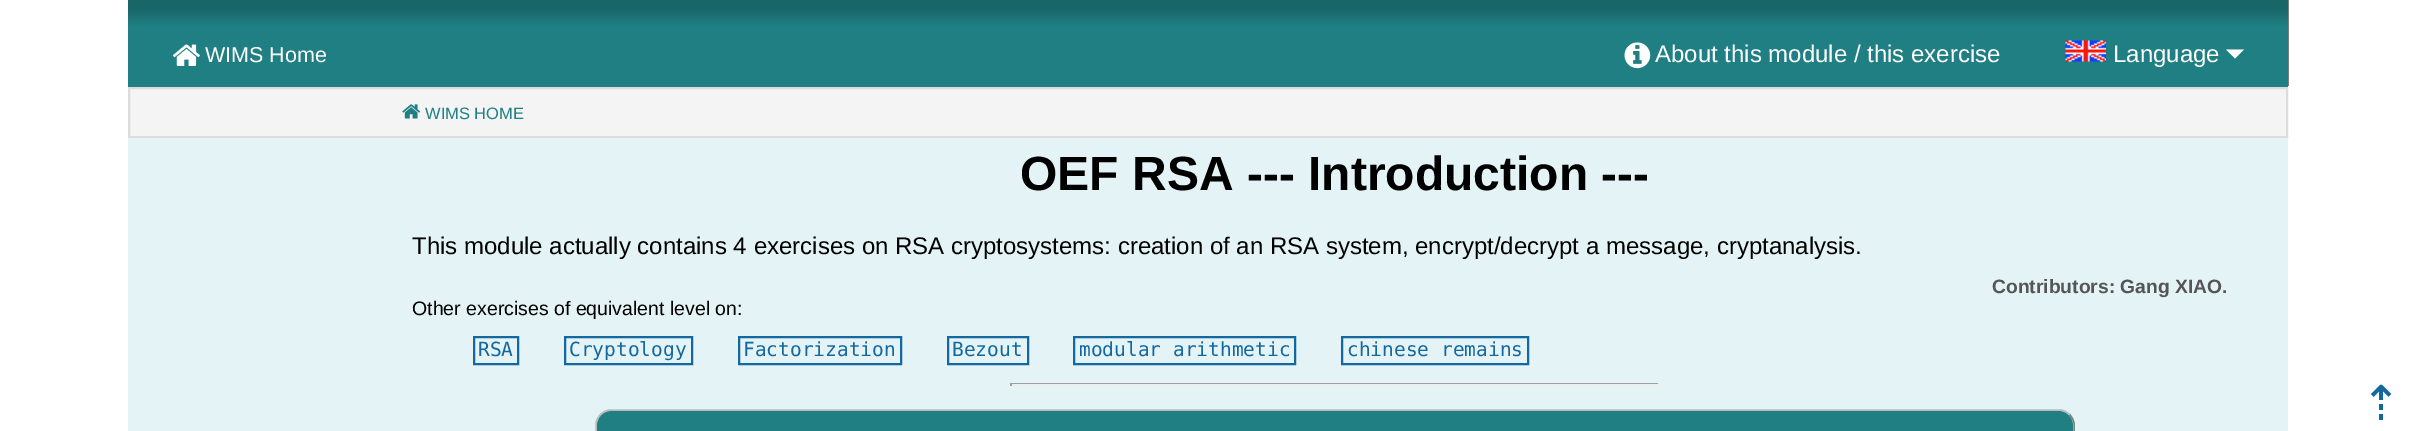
%!PS-Adobe-3.0
%%BoundingBox: 0 0 2413 431
%%LanguageLevel: 3
%%Pages: 1
%%EndComments
%%BeginProlog
/setink { 3 { 255 div 3 1 roll } repeat setrgbcolor } def
/usefont { [ exch dup neg 0 0 3 -1 roll 0 0 ] selectfont } def
/drawtext { setink usefont moveto show } def
/fillbox { setink rectfill } def
/drawimage { 5 dict begin { /h /w /y /x /name } { exch def } forall
  gsave x y translate w h scale
  w h 8 [w 0 0 h 0 0] name (r) file false 3 colorimage grestore end } def
%%EndProlog
%%BeginSetup
<< /PageSize [2413 431] >> setpagedevice
%%EndSetup
%%Page: 1 1
0 431 translate 1 -1 scale
4 setmiterlimit
0 0 2413 431 255 255 255 fillbox
128 128 128 setink
129 -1 moveto 129 0 lineto 2288 0 lineto 2288 86 lineto 2289 86 lineto 2289 -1 lineto closepath fill
gsave 128 0 moveto 2288 0 lineto 2288 87 lineto 128 87 lineto closepath clip newpath
<< /ShadingType 2 /ColorSpace /DeviceRGB /Coords [1208 87 1208 0] /Extend [true true] /Function << /FunctionType 3 /Domain [0 1] /Functions [<< /FunctionType 2 /Domain [0 1] /C0 [0.122 0.498 0.514] /C1 [0.122 0.498 0.514] /N 1 >> << /FunctionType 2 /Domain [0 1] /C0 [0.122 0.498 0.514] /C1 [0.098 0.4 0.412] /N 1 >> << /FunctionType 2 /Domain [0 1] /C0 [0.098 0.4 0.412] /C1 [0.098 0.4 0.412] /N 1 >>] /Bounds [0.7 0.9] /Encode [0 1 0 1 0 1] >> >> shfill grestore
(assets/img1.rgb) 173 44 27 22 drawimage
(WIMS Home) 205 62 /LiberationSans-Regular 21.5 255 255 255 drawtext
(assets/img2.rgb) 1624 42 27 27 drawimage
(About this module / this exercise) 1655 62 /LiberationSans-Regular 24 255 255 255 drawtext
(assets/img3.rgb) 2065 40 41 22 drawimage
(Language) 2113 62 /LiberationSans-Regular 24 255 255 255 drawtext
2226 49.5 moveto 2244 49.5 lineto 2235 58.5 lineto closepath fill
244 244 244 setink
129 88 moveto 2287 88 lineto 2287 137 lineto 129 137 lineto closepath gsave fill grestore
220 220 220 setink
2 setlinewidth
stroke
(assets/img4.rgb) 402 104 19 15 drawimage
(WIMS HOME) 425 119 /LiberationSans-Regular 16.5 31 127 131 drawtext
128 138 2160 293 228 244 246 fillbox
(OEF RSA --- Introduction ---) 1020 190 /LiberationSans-Bold 48 0 0 0 drawtext
(This module actually contains 4 exercises on RSA cryptosystems: creation of an RSA system, encrypt/decrypt a message, cryptanalysis.) 412 254 /LiberationSans-Regular 24 0 0 0 drawtext
(Contributors: Gang XIAO.) 1992 293 /LiberationSans-Bold 19.25 85 85 85 drawtext
(Other exercises of equivalent level on:) 412 315 /LiberationSans-Regular 19.5 0 0 0 drawtext
20 104 160 setink
474 337 44 27 rectstroke
(RSA) 478 356 /DejaVuSansMono-Regular 19.5 20 104 160 drawtext
565 337 127 27 rectstroke
(Cryptology) 569 356 /DejaVuSansMono-Regular 19.5 20 104 160 drawtext
739 337 162 27 rectstroke
(Factorization) 743 356 /DejaVuSansMono-Regular 19.5 20 104 160 drawtext
948 337 80 27 rectstroke
(Bezout) 952 356 /DejaVuSansMono-Regular 19.5 20 104 160 drawtext
1074 337 221 27 rectstroke
(modular arithmetic) 1079 356 /DejaVuSansMono-Regular 19.5 20 104 160 drawtext
1342 337 186 27 rectstroke
(chinese remains) 1347 356 /DejaVuSansMono-Regular 19.5 20 104 160 drawtext
1010 383 649 1 159 159 159 fillbox
1658 383 2 3 238 238 238 fillbox
1010 384 649 2 238 238 238 fillbox
1010 383 2 3 159 159 159 fillbox
128 128 128 setink
1.5 setlinewidth
2069.5 414.5 moveto 2072 417 2074 420.5 2074 424.5 curveto 2074 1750.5 lineto 2074 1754.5 2072 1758 2069.5 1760.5 curveto 2067 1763 2063.5 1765 2059.5 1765 curveto 610.5 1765 lineto 606.5 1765 603 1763 600.5 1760.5 curveto stroke
187 187 187 setink
600.5 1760.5 moveto 598 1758 596 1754.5 596 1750.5 curveto 596 424.5 lineto 596 420.5 598 417 600.5 414.5 curveto 603 412 606.5 410 610.5 410 curveto 2059.5 410 lineto 2063.5 410 2067 412 2069.5 414.5 curveto stroke
31 127 131 setink
612 411 moveto 2058 411 lineto 2066.5 411 2073 417.5 2073 426 curveto 2073 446 lineto 597 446 lineto 597 426 lineto 597 417.5 603.5 411 612 411 curveto closepath fill
(⇡) 2361 420 /DejaVuSans-Regular 48 20 104 160 drawtext
showpage
%%EOF
